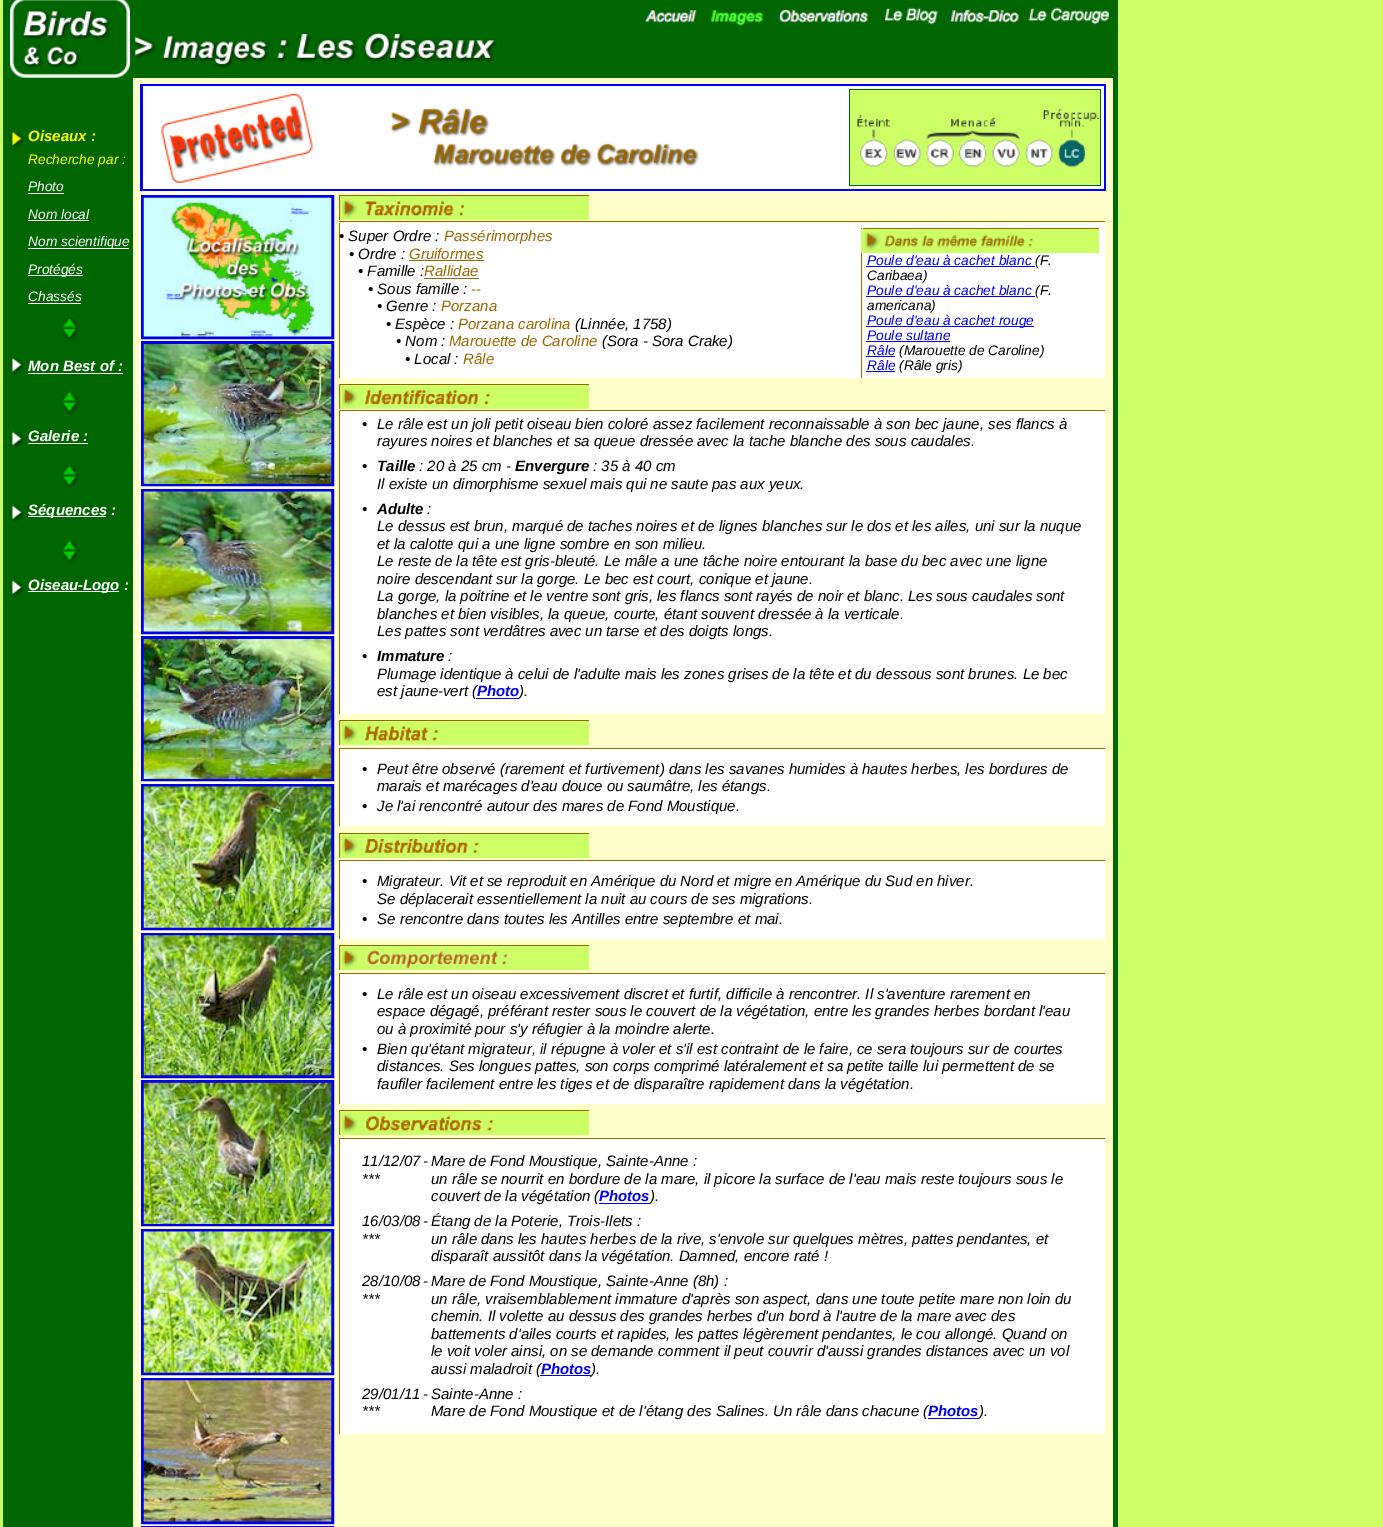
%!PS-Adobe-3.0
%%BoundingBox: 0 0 1383 1527
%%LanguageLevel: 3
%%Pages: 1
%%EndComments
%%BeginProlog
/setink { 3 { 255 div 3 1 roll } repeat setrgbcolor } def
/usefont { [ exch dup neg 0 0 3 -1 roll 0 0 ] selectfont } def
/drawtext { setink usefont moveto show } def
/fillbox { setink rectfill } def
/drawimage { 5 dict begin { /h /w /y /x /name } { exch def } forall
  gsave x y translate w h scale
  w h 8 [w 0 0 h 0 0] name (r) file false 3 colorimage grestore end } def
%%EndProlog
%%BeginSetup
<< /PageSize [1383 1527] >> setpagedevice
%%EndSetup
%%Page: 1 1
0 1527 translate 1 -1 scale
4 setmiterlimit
0 0 1383 1527 204 255 102 fillbox
3 0 1115 1527 0 102 0 fillbox
(assets/img1.rgb) 10 0 120 78 drawimage
(assets/img2.rgb) 644 10 53 13 drawimage
(assets/img3.rgb) 710 10 54 16 drawimage
(assets/img4.rgb) 778 9 91 14 drawimage
(assets/img5.rgb) 884 7 54 18 drawimage
(assets/img6.rgb) 949 9 70 14 drawimage
(assets/img7.rgb) 1028 7 81 18 drawimage
(assets/img8.rgb) 133 32 364 36 drawimage
(assets/img9.rgb) 10 131 15 17 drawimage
(Oiseaux :) 28 141 /LiberationSans-BoldItalic 15 255 255 0 drawtext
(Recherche par :) 28 164 /LiberationSans-Italic 13.75 255 255 0 drawtext
(Photo) 28 191 /LiberationSans-Italic 13.75 255 255 255 drawtext
28 193 36 1 255 255 255 fillbox
(Nom local) 28 219 /LiberationSans-Italic 13.75 255 255 255 drawtext
28 220 61 1 255 255 255 fillbox
28 248 101 1 255 255 255 fillbox
(Nom scientifique) 28 246 /LiberationSans-Italic 13.75 255 255 255 drawtext
28 275 55 1 255 255 255 fillbox
(Protégés) 28 274 /LiberationSans-Italic 13.75 255 255 255 drawtext
(Chassés) 28 301 /LiberationSans-Italic 13.75 255 255 255 drawtext
28 303 53 1 255 255 255 fillbox
(assets/img10.rgb) 62 318 18 23 drawimage
(assets/img11.rgb) 10 357 15 18 drawimage
(Mon Best of :) 28 371 /LiberationSans-BoldItalic 15 255 255 255 drawtext
28 373 95 1 255 255 255 fillbox
(assets/img12.rgb) 62 391 18 24 drawimage
(assets/img13.rgb) 10 431 15 17 drawimage
(Galerie :) 28 441 /LiberationSans-BoldItalic 15 255 255 255 drawtext
28 443 60 1 255 255 255 fillbox
(assets/img14.rgb) 62 465 18 24 drawimage
(assets/img15.rgb) 10 505 15 17 drawimage
28 516 78 1 255 255 255 fillbox
(Séquences :) 28 515 /LiberationSans-BoldItalic 15 255 255 255 drawtext
(assets/img14.rgb) 62 540 18 24 drawimage
(assets/img16.rgb) 10 580 15 17 drawimage
28 591 91 1 255 255 255 fillbox
(Oiseau-Logo :) 28 590 /LiberationSans-BoldItalic 15 255 255 255 drawtext
133 78 980 1449 255 255 204 fillbox
140 84 966 107 0 0 255 fillbox
143 86 961 103 255 255 255 fillbox
(assets/img17.rgb) 161 93 152 90 drawimage
(assets/img18.rgb) 391 108 308 59 drawimage
849 89 252 97 0 102 0 fillbox
850 90 250 95 204 255 102 fillbox
(assets/img19.rgb) 857 108 242 59 drawimage
0 0 238 setink
3 setlinewidth
142.5 196.5 190 141 rectstroke
(assets/img20.rgb) 143 197 189 140 drawimage
142.5 342.5 190 142 rectstroke
(assets/img21.rgb) 143 344 189 140 drawimage
142.5 490.5 190 142 rectstroke
(assets/img22.rgb) 143 491 189 141 drawimage
142.5 637.5 190 142 rectstroke
(assets/img23.rgb) 143 639 189 140 drawimage
142.5 785.5 190 143 rectstroke
(assets/img24.rgb) 143 786 189 142 drawimage
142.5 934.5 190 142 rectstroke
(assets/img25.rgb) 143 935 189 141 drawimage
142.5 1081.5 190 143 rectstroke
(assets/img26.rgb) 143 1082 189 142 drawimage
142.5 1230.5 190 143 rectstroke
(assets/img27.rgb) 143 1231 189 142 drawimage
142.5 1379.5 190 143 rectstroke
(assets/img28.rgb) 143 1380 189 142 drawimage
142.5 1527.5 190 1 rectstroke
339 195 250 1 153 102 0 fillbox
339 196 1 24 153 102 0 fillbox
340 196 249 24 204 255 102 fillbox
(assets/img29.rgb) 342 199 16 19 drawimage
(assets/img30.rgb) 365 201 100 15 drawimage
339 221 766 1 153 102 0 fillbox
339 223 1 155 153 102 0 fillbox
340 223 765 155 255 255 255 fillbox
(• Super Ordre :) 339 241 /LiberationSans-Italic 15 0 0 0 drawtext
(Passérimorphes) 444 241 /LiberationSans-Italic 15 153 102 0 drawtext
(• Ordre :) 349 259 /LiberationSans-Italic 15 0 0 0 drawtext
(Gruiformes) 409 259 /LiberationSans-Italic 15 153 102 0 drawtext
409 260 75 1 153 102 0 fillbox
(• Famille :) 358 276 /LiberationSans-Italic 15 0 0 0 drawtext
(Rallidae) 424 276 /LiberationSans-Italic 15 153 102 0 drawtext
424 278 55 1 153 102 0 fillbox
(• Sous famille :) 368 294 /LiberationSans-Italic 15 0 0 0 drawtext
(--) 471 294 /LiberationSans-Italic 15 153 102 0 drawtext
(• Genre :) 377 311 /LiberationSans-Italic 15 0 0 0 drawtext
(Porzana) 441 311 /LiberationSans-Italic 15 153 102 0 drawtext
(• Espèce :) 386 329 /LiberationSans-Italic 15 0 0 0 drawtext
(Porzana carolina) 458 329 /LiberationSans-Italic 15 153 102 0 drawtext
(\(Linnée, 1758\)) 575 329 /LiberationSans-Italic 15 0 0 0 drawtext
(• Nom :) 396 346 /LiberationSans-Italic 15 0 0 0 drawtext
(Marouette de Caroline) 449 346 /LiberationSans-Italic 15 153 102 0 drawtext
(\(Sora - Sora Crake\)) 602 346 /LiberationSans-Italic 15 0 0 0 drawtext
(• Local :) 405 364 /LiberationSans-Italic 15 0 0 0 drawtext
(Râle) 463 364 /LiberationSans-Italic 15 153 102 0 drawtext
861 228 1 150 153 102 0 fillbox
863 228 236 1 153 102 0 fillbox
861 229 238 24 204 255 102 fillbox
(assets/img31.rgb) 864 232 16 19 drawimage
(assets/img32.rgb) 884 235 149 12 drawimage
(Poule d'eau à cachet blanc) 867 265 /LiberationSans-Italic 13.75 0 0 238 drawtext
866 266 169 1 0 0 238 fillbox
(\(F.) 1035 265 /LiberationSans-Italic 13.75 0 0 0 drawtext
(Caribaea\)) 867 280 /LiberationSans-Italic 13.75 0 0 0 drawtext
(Poule d'eau à cachet blanc) 867 295 /LiberationSans-Italic 13.75 0 0 238 drawtext
866 296 169 1 0 0 238 fillbox
(\(F.) 1035 295 /LiberationSans-Italic 13.75 0 0 0 drawtext
(americana\)) 867 310 /LiberationSans-Italic 13.75 0 0 0 drawtext
866 326 168 1 0 0 238 fillbox
(Poule d'eau à cachet rouge) 867 325 /LiberationSans-Italic 13.75 0 0 238 drawtext
(Poule sultane) 867 340 /LiberationSans-Italic 13.75 0 0 238 drawtext
866 341 84 1 0 0 238 fillbox
(Râle) 867 355 /LiberationSans-Italic 13.75 0 0 238 drawtext
866 356 29 1 0 0 238 fillbox
(\(Marouette de Caroline\)) 899 355 /LiberationSans-Italic 13.75 0 0 0 drawtext
(Râle) 867 370 /LiberationSans-Italic 13.75 0 0 238 drawtext
866 371 29 1 0 0 238 fillbox
(\(Râle gris\)) 899 370 /LiberationSans-Italic 13.75 0 0 0 drawtext
339 384 250 1 153 102 0 fillbox
339 385 1 24 153 102 0 fillbox
340 385 249 24 204 255 102 fillbox
(assets/img33.rgb) 342 388 16 19 drawimage
(assets/img34.rgb) 365 390 125 15 drawimage
339 410 766 1 153 102 0 fillbox
339 411 1 303 153 102 0 fillbox
340 411 765 303 255 255 255 fillbox
(•) 362 429 /LiberationSans-Italic 15 0 0 0 drawtext
(Le râle est un joli petit oiseau bien coloré assez facilement reconnaissable à son bec jaune, ses flancs à) 377 429 /LiberationSans-Italic 15 0 0 0 drawtext
(rayures noires et blanches et sa queue dressée avec la tache blanche des sous caudales.) 377 446 /LiberationSans-Italic 15 0 0 0 drawtext
(•) 362 471 /LiberationSans-Italic 15 0 0 0 drawtext
(Taille) 377 471 /LiberationSans-BoldItalic 15 0 0 0 drawtext
(: 20 à 25 cm -) 419 471 /LiberationSans-Italic 15 0 0 0 drawtext
(Envergure) 515 471 /LiberationSans-BoldItalic 15 0 0 0 drawtext
(: 35 à 40 cm) 593 471 /LiberationSans-Italic 15 0 0 0 drawtext
(Il existe un dimorphisme sexuel mais qui ne saute pas aux yeux.) 377 489 /LiberationSans-Italic 15 0 0 0 drawtext
(•) 362 514 /LiberationSans-Italic 15 0 0 0 drawtext
(Adulte) 377 514 /LiberationSans-BoldItalic 15 0 0 0 drawtext
(:) 427 514 /LiberationSans-Italic 15 0 0 0 drawtext
(Le dessus est brun, marqué de taches noires et de lignes blanches sur le dos et les ailes, uni sur la nuque) 377 531 /LiberationSans-Italic 15 0 0 0 drawtext
(et la calotte qui a une ligne sombre en son milieu.) 377 549 /LiberationSans-Italic 15 0 0 0 drawtext
(Le reste de la tête est gris-bleuté. Le mâle a une tâche noire entourant la base du bec avec une ligne) 377 566 /LiberationSans-Italic 15 0 0 0 drawtext
(noire descendant sur la gorge. Le bec est court, conique et jaune.) 377 584 /LiberationSans-Italic 15 0 0 0 drawtext
(La gorge, la poitrine et le ventre sont gris, les flancs sont rayés de noir et blanc. Les sous caudales sont) 377 601 /LiberationSans-Italic 15 0 0 0 drawtext
(blanches et bien visibles, la queue, courte, étant souvent dressée à la verticale.) 377 619 /LiberationSans-Italic 15 0 0 0 drawtext
(Les pattes sont verdâtres avec un tarse et des doigts longs.) 377 636 /LiberationSans-Italic 15 0 0 0 drawtext
(•) 362 661 /LiberationSans-Italic 15 0 0 0 drawtext
(Immature) 377 661 /LiberationSans-BoldItalic 15 0 0 0 drawtext
(:) 448 661 /LiberationSans-Italic 15 0 0 0 drawtext
(Plumage identique à celui de l'adulte mais les zones grises de la tête et du dessous sont brunes. Le bec) 377 679 /LiberationSans-Italic 15 0 0 0 drawtext
(est jaune-vert \() 377 696 /LiberationSans-Italic 15 0 0 0 drawtext
(Photo) 477 696 /LiberationSans-BoldItalic 15 0 0 238 drawtext
476 698 43 1 0 0 238 fillbox
(\).) 519 696 /LiberationSans-Italic 15 0 0 0 drawtext
339 720 250 1 153 102 0 fillbox
339 721 1 24 153 102 0 fillbox
340 721 249 24 204 255 102 fillbox
(assets/img29.rgb) 342 724 16 19 drawimage
(assets/img35.rgb) 365 726 73 15 drawimage
339 748 766 1 153 102 0 fillbox
339 749 1 77 153 102 0 fillbox
340 749 765 77 255 255 255 fillbox
(•) 362 774 /LiberationSans-Italic 15 0 0 0 drawtext
(Peut être observé \(rarement et furtivement\) dans les savanes humides à hautes herbes, les bordures de) 377 774 /LiberationSans-Italic 15 0 0 0 drawtext
(marais et marécages d'eau douce ou saumâtre, les étangs.) 377 791 /LiberationSans-Italic 15 0 0 0 drawtext
(•) 362 811 /LiberationSans-Italic 15 0 0 0 drawtext
(Je l'ai rencontré autour des mares de Fond Moustique.) 377 811 /LiberationSans-Italic 15 0 0 0 drawtext
339 833 250 1 153 102 0 fillbox
339 834 1 24 153 102 0 fillbox
340 834 249 24 204 255 102 fillbox
(assets/img36.rgb) 342 837 16 19 drawimage
(assets/img37.rgb) 365 839 114 14 drawimage
339 860 766 1 153 102 0 fillbox
339 861 1 78 153 102 0 fillbox
340 861 765 78 255 255 255 fillbox
(•) 362 886 /LiberationSans-Italic 15 0 0 0 drawtext
(Migrateur. Vit et se reproduit en Amérique du Nord et migre en Amérique du Sud en hiver.) 377 886 /LiberationSans-Italic 15 0 0 0 drawtext
(Se déplacerait essentiellement la nuit au cours de ses migrations.) 377 904 /LiberationSans-Italic 15 0 0 0 drawtext
(•) 362 924 /LiberationSans-Italic 15 0 0 0 drawtext
(Se rencontre dans toutes les Antilles entre septembre et mai.) 377 924 /LiberationSans-Italic 15 0 0 0 drawtext
339 945 250 1 153 102 0 fillbox
339 946 1 24 153 102 0 fillbox
340 946 249 24 204 255 102 fillbox
(assets/img29.rgb) 342 949 16 19 drawimage
(assets/img38.rgb) 365 949 144 21 drawimage
339 973 766 1 153 102 0 fillbox
339 974 1 130 153 102 0 fillbox
340 974 765 130 255 255 255 fillbox
(•) 362 999 /LiberationSans-Italic 15 0 0 0 drawtext
(Le râle est un oiseau excessivement discret et furtif, difficile à rencontrer. Il s'aventure rarement en) 377 999 /LiberationSans-Italic 15 0 0 0 drawtext
(espace dégagé, préférant rester sous le couvert de la végétation, entre les grandes herbes bordant l'eau) 377 1016 /LiberationSans-Italic 15 0 0 0 drawtext
(ou à proximité pour s'y réfugier à la moindre alerte.) 377 1034 /LiberationSans-Italic 15 0 0 0 drawtext
(•) 362 1054 /LiberationSans-Italic 15 0 0 0 drawtext
(Bien qu'étant migrateur, il répugne à voler et s'il est contraint de le faire, ce sera toujours sur de courtes) 377 1054 /LiberationSans-Italic 15 0 0 0 drawtext
(distances. Ses longues pattes, son corps comprimé latéralement et sa petite taille lui permettent de se) 377 1071 /LiberationSans-Italic 15 0 0 0 drawtext
(faufiler facilement entre les tiges et de disparaître rapidement dans la végétation.) 377 1089 /LiberationSans-Italic 15 0 0 0 drawtext
339 1110 250 1 153 102 0 fillbox
339 1111 1 24 153 102 0 fillbox
340 1111 249 24 204 255 102 fillbox
(assets/img29.rgb) 342 1114 16 19 drawimage
(assets/img39.rgb) 366 1116 127 15 drawimage
339 1138 766 1 153 102 0 fillbox
339 1139 1 295 153 102 0 fillbox
340 1139 765 295 255 255 255 fillbox
(11/12/07) 362 1166 /LiberationSans-Italic 15 0 0 0 drawtext
(***) 362 1184 /LiberationSans-Italic 15 0 0 0 drawtext
(-) 423 1166 /LiberationSans-Italic 15 0 0 0 drawtext
(Mare de Fond Moustique, Sainte-Anne :) 431 1166 /LiberationSans-Italic 15 0 0 0 drawtext
(un râle se nourrit en bordure de la mare, il picore la surface de l'eau mais reste toujours sous le) 431 1184 /LiberationSans-Italic 15 0 0 0 drawtext
(couvert de la végétation \() 431 1201 /LiberationSans-Italic 15 0 0 0 drawtext
(Photos) 599 1201 /LiberationSans-BoldItalic 15 0 0 238 drawtext
599 1203 51 1 0 0 238 fillbox
(\).) 650 1201 /LiberationSans-Italic 15 0 0 0 drawtext
(16/03/08) 362 1226 /LiberationSans-Italic 15 0 0 0 drawtext
(***) 362 1244 /LiberationSans-Italic 15 0 0 0 drawtext
(-) 423 1226 /LiberationSans-Italic 15 0 0 0 drawtext
(Étang de la Poterie, Trois-Ilets :) 431 1226 /LiberationSans-Italic 15 0 0 0 drawtext
(un râle dans les hautes herbes de la rive, s'envole sur quelques mètres, pattes pendantes, et) 431 1244 /LiberationSans-Italic 15 0 0 0 drawtext
(disparaît aussitôt dans la végétation. Damned, encore raté !) 431 1261 /LiberationSans-Italic 15 0 0 0 drawtext
(28/10/08) 362 1286 /LiberationSans-Italic 15 0 0 0 drawtext
(***) 362 1304 /LiberationSans-Italic 15 0 0 0 drawtext
(-) 423 1286 /LiberationSans-Italic 15 0 0 0 drawtext
(Mare de Fond Moustique, Sainte-Anne \(8h\) :) 431 1286 /LiberationSans-Italic 15 0 0 0 drawtext
(un râle, vraisemblablement immature d'après son aspect, dans une toute petite mare non loin du) 431 1304 /LiberationSans-Italic 15 0 0 0 drawtext
(chemin. Il volette au dessus des grandes herbes d'un bord à l'autre de la mare avec des) 431 1321 /LiberationSans-Italic 15 0 0 0 drawtext
(battements d'ailes courts et rapides, les pattes légèrement pendantes, le cou allongé. Quand on) 431 1339 /LiberationSans-Italic 15 0 0 0 drawtext
(le voit voler ainsi, on se demande comment il peut couvrir d'aussi grandes distances avec un vol) 431 1356 /LiberationSans-Italic 15 0 0 0 drawtext
(aussi maladroit \() 431 1374 /LiberationSans-Italic 15 0 0 0 drawtext
(Photos) 541 1374 /LiberationSans-BoldItalic 15 0 0 238 drawtext
540 1375 51 1 0 0 238 fillbox
(\).) 591 1374 /LiberationSans-Italic 15 0 0 0 drawtext
(29/01/11) 362 1399 /LiberationSans-Italic 15 0 0 0 drawtext
(***) 362 1416 /LiberationSans-Italic 15 0 0 0 drawtext
(-) 423 1399 /LiberationSans-Italic 15 0 0 0 drawtext
(Sainte-Anne :) 431 1399 /LiberationSans-Italic 15 0 0 0 drawtext
(Mare de Fond Moustique et de l'étang des Salines. Un râle dans chacune \() 431 1416 /LiberationSans-Italic 15 0 0 0 drawtext
(Photos) 928 1416 /LiberationSans-BoldItalic 15 0 0 238 drawtext
928 1418 51 1 0 0 238 fillbox
(\).) 979 1416 /LiberationSans-Italic 15 0 0 0 drawtext
showpage
%%EOF
